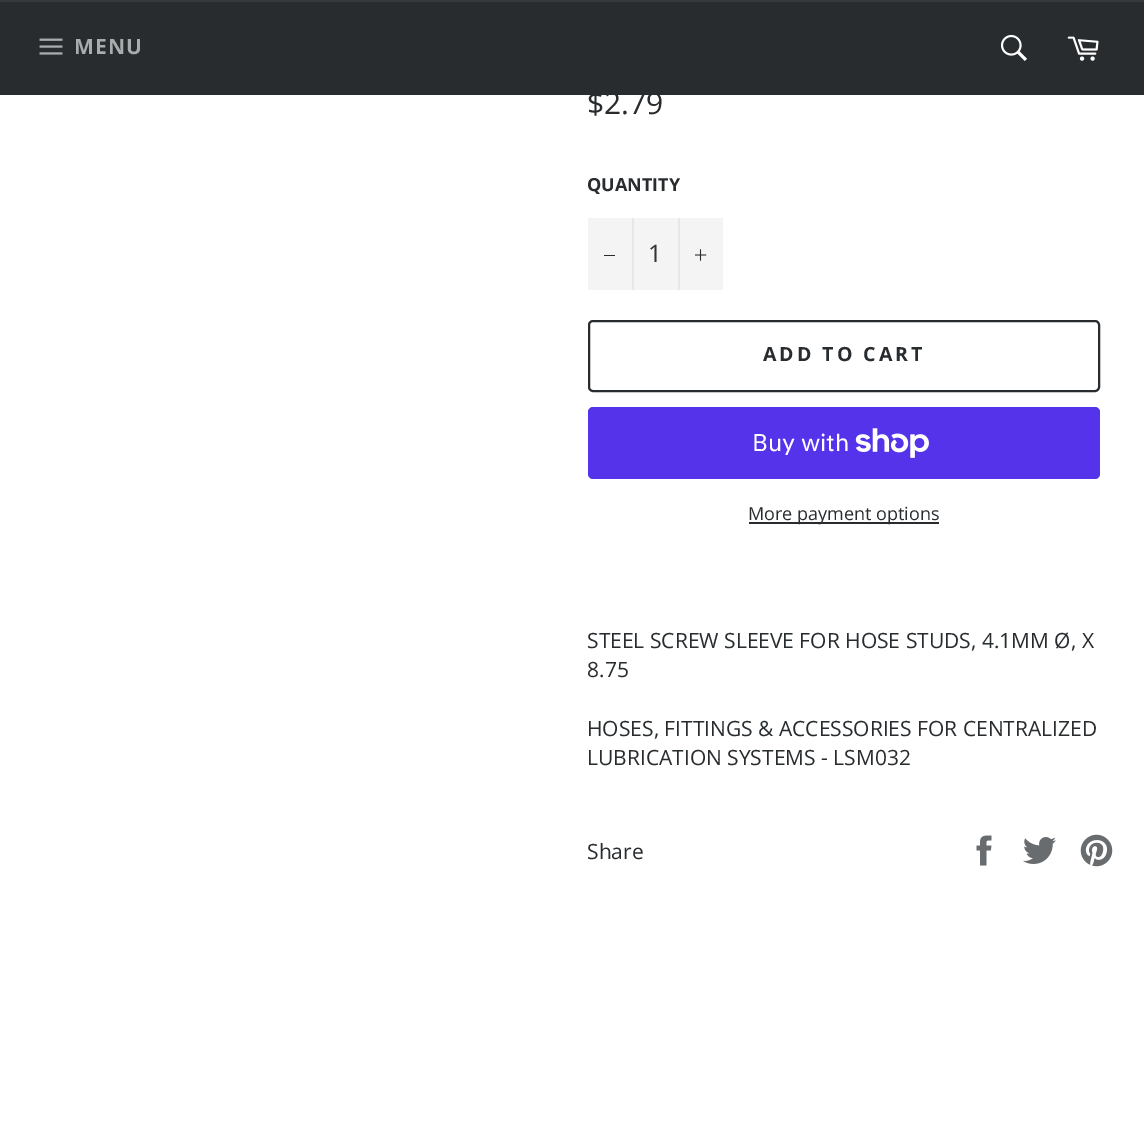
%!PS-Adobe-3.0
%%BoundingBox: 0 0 1144 1122
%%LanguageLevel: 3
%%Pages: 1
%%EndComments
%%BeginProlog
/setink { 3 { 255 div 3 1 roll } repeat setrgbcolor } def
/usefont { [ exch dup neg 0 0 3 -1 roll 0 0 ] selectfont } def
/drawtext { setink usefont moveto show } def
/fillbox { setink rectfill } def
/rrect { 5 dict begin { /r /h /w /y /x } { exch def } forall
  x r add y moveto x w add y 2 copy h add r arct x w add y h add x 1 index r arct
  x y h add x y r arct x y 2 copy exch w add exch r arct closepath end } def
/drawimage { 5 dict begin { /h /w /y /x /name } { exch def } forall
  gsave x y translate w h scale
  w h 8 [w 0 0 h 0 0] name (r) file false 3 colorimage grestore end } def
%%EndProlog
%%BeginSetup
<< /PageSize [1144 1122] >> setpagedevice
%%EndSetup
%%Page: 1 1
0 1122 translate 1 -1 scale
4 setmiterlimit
0 0 1144 1122 255 255 255 fillbox
0 2 1144 93 40 44 47 fillbox
0 0 1144 2 52 57 61 fillbox
(assets/img1.rgb) 39 38 24 17 drawimage
/OpenSans-Bold 21 usefont
169 171 172 setink
74 54 moveto 1 0 (MENU) ashow
(assets/img2.rgb) 1000 34 27 27 drawimage
(assets/img3.rgb) 1067 36 32 25 drawimage
($2.79) 587 114 /OpenSans-Regular 30 40 44 47 drawtext
(QUANTITY) 587 191 /OpenSans-Bold 18 40 44 47 drawtext
588 218 135 72 244 244 244 fillbox
632 218 2 72 231 231 231 fillbox
604 255 11 1 40 44 47 fillbox
(1) 648 262 /OpenSans-Regular 24 51 51 51 drawtext
678 218 2 72 231 231 231 fillbox
(assets/img4.rgb) 695 249 12 12 drawimage
40 44 47 setink
2 setlinewidth
589 321 510 70 4 rrect stroke
/OpenSans-Bold 19.5 usefont
763 361 moveto 3 0 (ADD TO CART) ashow
84 51 235 setink
588 407 512 72 5 rrect fill
(Buy with) 752 451 /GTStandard-Regular 24 255 255 255 drawtext
(assets/img5.rgb) 855 428 74 30 drawimage
749 522 190 2 40 44 47 fillbox
(More payment options) 748 520 /OpenSans-Regular 18 40 44 47 drawtext
(STEEL SCREW SLEEVE FOR HOSE STUDS, 4.1MM Ø, X) 587 648 /OpenSans-Regular 21 40 44 47 drawtext
(8.75) 587 677 /OpenSans-Regular 21 40 44 47 drawtext
(HOSES, FITTINGS & ACCESSORIES FOR CENTRALIZED) 587 736 /OpenSans-Regular 21 40 44 47 drawtext
(LUBRICATION SYSTEMS - LSM032) 587 765 /OpenSans-Regular 21 40 44 47 drawtext
(Share) 587 859 /OpenSans-Regular 21 40 44 47 drawtext
(assets/img6.rgb) 976 835 16 31 drawimage
(assets/img7.rgb) 1023 837 33 27 drawimage
(assets/img8.rgb) 1080 834 33 33 drawimage
showpage
%%EOF
